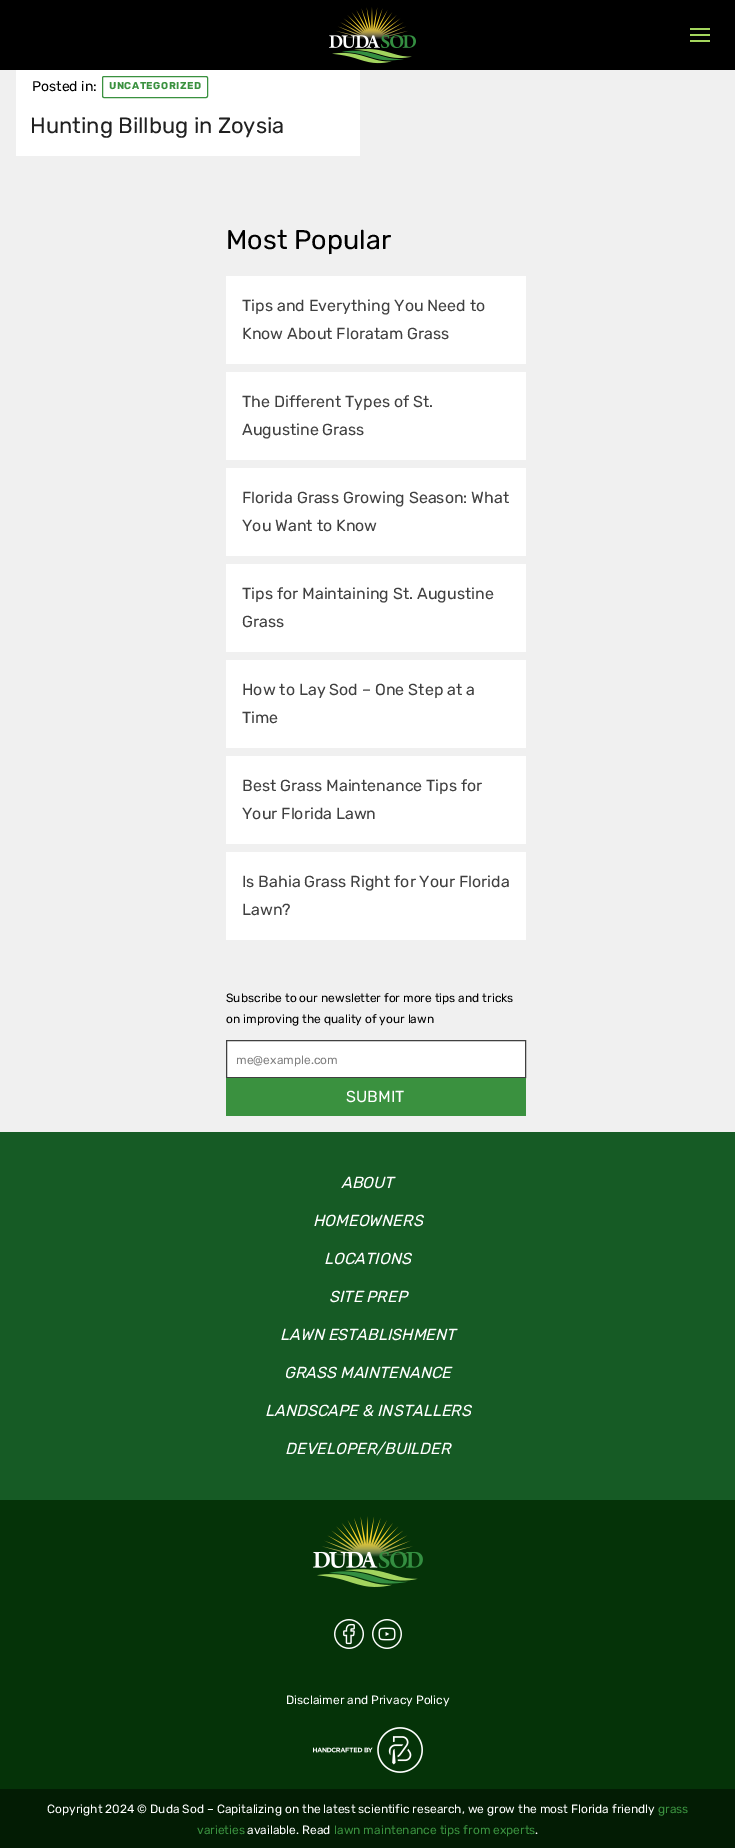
%!PS-Adobe-3.0
%%BoundingBox: 0 0 735 1848
%%LanguageLevel: 3
%%Pages: 1
%%EndComments
%%BeginProlog
/setink { 3 { 255 div 3 1 roll } repeat setrgbcolor } def
/usefont { [ exch dup neg 0 0 3 -1 roll 0 0 ] selectfont } def
/drawtext { setink usefont moveto show } def
/fillbox { setink rectfill } def
/rrect { 5 dict begin { /r /h /w /y /x } { exch def } forall
  x r add y moveto x w add y 2 copy h add r arct x w add y h add x 1 index r arct
  x y h add x y r arct x y 2 copy exch w add exch r arct closepath end } def
/drawimage { 5 dict begin { /h /w /y /x /name } { exch def } forall
  gsave x y translate w h scale
  w h 8 [w 0 0 h 0 0] name (r) file false 3 colorimage grestore end } def
%%EndProlog
%%BeginSetup
<< /PageSize [735 1848] >> setpagedevice
%%EndSetup
%%Page: 1 1
0 1848 translate 1 -1 scale
4 setmiterlimit
0 0 735 1848 22 91 37 fillbox
0 0 735 70 0 0 0 fillbox
(assets/img1.rgb) 329 7 87 57 drawimage
690 34 20 2 164 214 94 fillbox
690 28 20 2 164 214 94 fillbox
690 40 20 2 164 214 94 fillbox
0 70 735 1062 240 240 240 fillbox
16 70 344 86 255 255 255 fillbox
(Posted in:) 32 91 /Rubik-Regular 14 0 0 0 drawtext
58 145 63 setink
102.5 76.5 105 21 1.5 rrect stroke
/Rubik-Bold 10 usefont
109 89 moveto 0.5 0 (UNCATEGORIZED) ashow
(Hunting Billbug in Zoysia) 30 133 /Rubik-Regular 22 32 32 32 drawtext
(Most Popular) 226 249 /Rubik-Regular 27 0 0 0 drawtext
226 276 300 88 255 255 255 fillbox
(Tips and Everything You Need to) 242 311 /Rubik-Regular 16 64 64 64 drawtext
(Know About Floratam Grass) 242 339 /Rubik-Regular 16 64 64 64 drawtext
226 372 300 88 255 255 255 fillbox
(The Different Types of St.) 242 407 /Rubik-Regular 16 64 64 64 drawtext
(Augustine Grass) 242 435 /Rubik-Regular 16 64 64 64 drawtext
226 468 300 88 255 255 255 fillbox
(Florida Grass Growing Season: What) 242 503 /Rubik-Regular 16 64 64 64 drawtext
(You Want to Know) 242 531 /Rubik-Regular 16 64 64 64 drawtext
226 564 300 88 255 255 255 fillbox
(Tips for Maintaining St. Augustine) 242 599 /Rubik-Regular 16 64 64 64 drawtext
(Grass) 242 627 /Rubik-Regular 16 64 64 64 drawtext
226 660 300 88 255 255 255 fillbox
(How to Lay Sod – One Step at a) 242 695 /Rubik-Regular 16 64 64 64 drawtext
(Time) 242 723 /Rubik-Regular 16 64 64 64 drawtext
226 756 300 88 255 255 255 fillbox
(Best Grass Maintenance Tips for) 242 791 /Rubik-Regular 16 64 64 64 drawtext
(Your Florida Lawn) 242 819 /Rubik-Regular 16 64 64 64 drawtext
226 852 300 88 255 255 255 fillbox
(Is Bahia Grass Right for Your Florida) 242 887 /Rubik-Regular 16 64 64 64 drawtext
(Lawn?) 242 915 /Rubik-Regular 16 64 64 64 drawtext
(Subscribe to our newsletter for more tips and tricks) 226 1002 /Rubik-Regular 12 0 0 0 drawtext
(on improving the quality of your lawn) 226 1023 /Rubik-Regular 12 0 0 0 drawtext
255 255 255 setink
226.5 1040.5 moveto 525.5 1040.5 lineto 525.5 1077.5 lineto 226.5 1077.5 lineto closepath gsave fill grestore
64 64 64 setink
stroke
(me@example.com) 236 1064 /Rubik-Regular 12 128 128 128 drawtext
226 1078 300 38 58 145 63 fillbox
(SUBMIT) 346 1102 /Rubik-Regular 16 255 255 255 drawtext
(ABOUT) 341 1188 /Rubik-Italic 16 255 255 255 drawtext
(HOMEOWNERS) 313 1226 /Rubik-Italic 16 255 255 255 drawtext
(LOCATIONS) 324 1264 /Rubik-Italic 16 255 255 255 drawtext
(SITE PREP) 329 1302 /Rubik-Italic 16 255 255 255 drawtext
(LAWN ESTABLISHMENT) 280 1340 /Rubik-Italic 16 255 255 255 drawtext
(GRASS MAINTENANCE) 284 1378 /Rubik-Italic 16 255 255 255 drawtext
(LANDSCAPE & INSTALLERS) 265 1416 /Rubik-Italic 16 255 255 255 drawtext
(DEVELOPER/BUILDER) 285 1454 /Rubik-Italic 16 255 255 255 drawtext
0 1500 735 289 5 51 8 fillbox
(assets/img2.rgb) 313 1516 110 71 drawimage
(assets/img3.rgb) 334 1619 30 30 drawimage
(assets/img4.rgb) 372 1619 30 30 drawimage
(Disclaimer and Privacy Policy) 286 1704 /Rubik-Regular 12 255 255 255 drawtext
(assets/img5.rgb) 313 1727 110 46 drawimage
0 1789 735 59 3 28 4 fillbox
(Copyright 2024 © Duda Sod – Capitalizing on the latest scientific research, we grow the most Florida friendly) 47 1813 /Rubik-Regular 12 255 255 255 drawtext
(grass) 658 1813 /Rubik-Regular 12 58 145 63 drawtext
(varieties) 197 1834 /Rubik-Regular 12 58 145 63 drawtext
(available. Read) 247 1834 /Rubik-Regular 12 255 255 255 drawtext
(lawn maintenance tips from experts) 334 1834 /Rubik-Regular 12 58 145 63 drawtext
(.) 535 1834 /Rubik-Regular 12 255 255 255 drawtext
showpage
%%EOF
